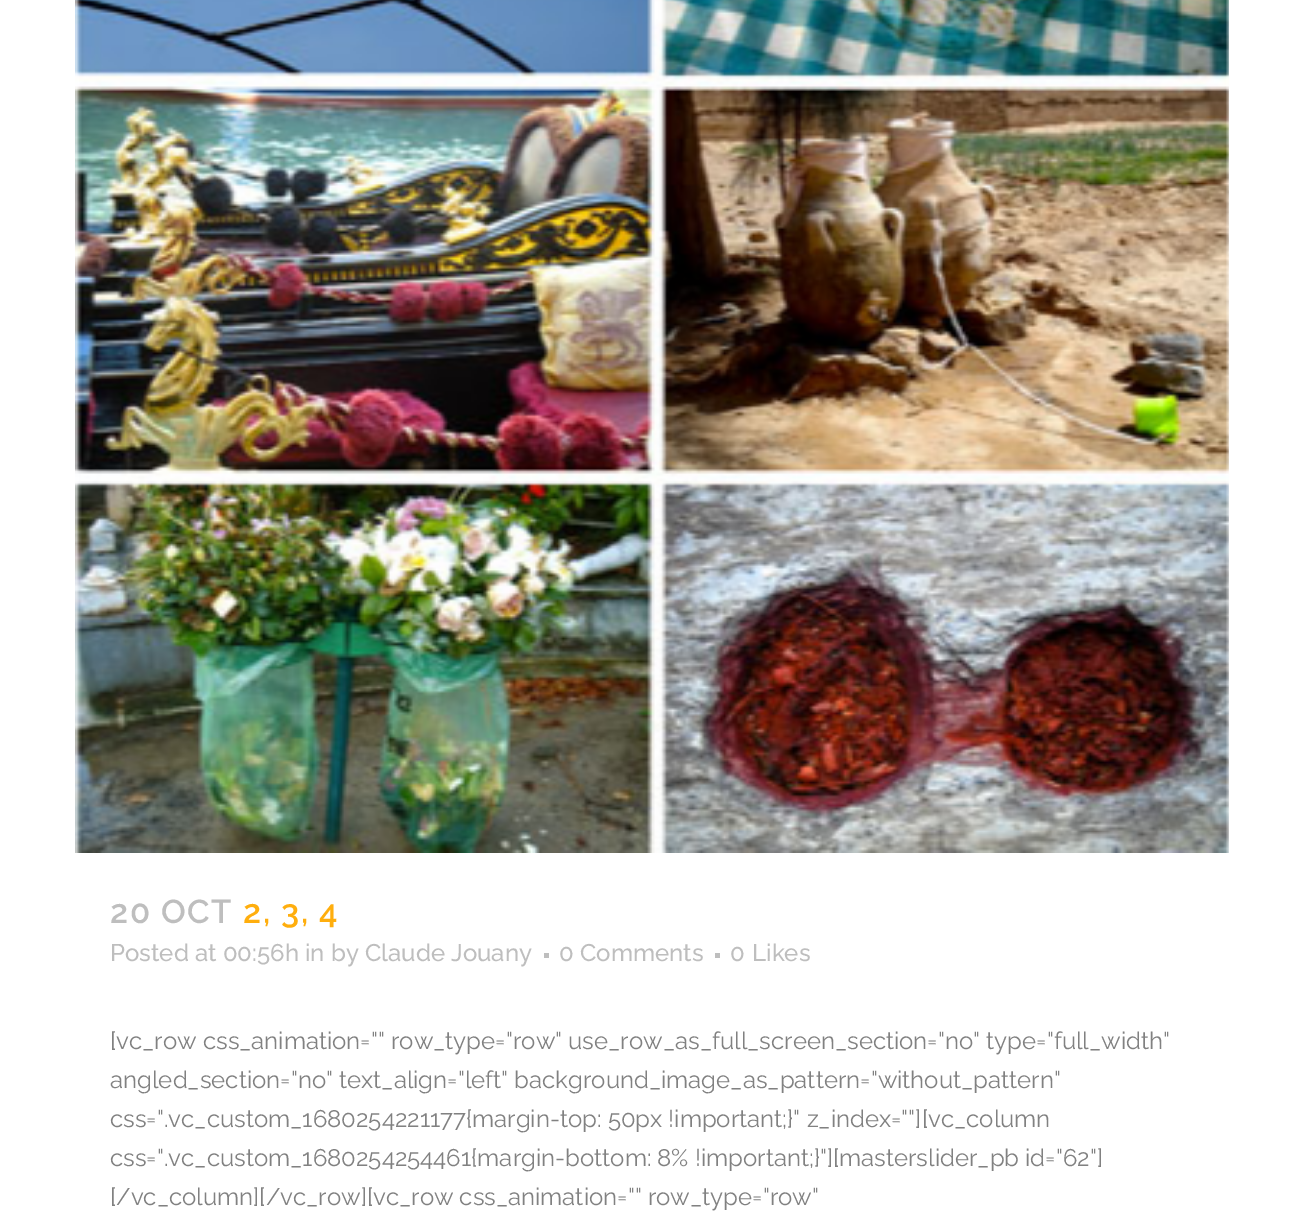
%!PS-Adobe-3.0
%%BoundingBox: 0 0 1303 1230
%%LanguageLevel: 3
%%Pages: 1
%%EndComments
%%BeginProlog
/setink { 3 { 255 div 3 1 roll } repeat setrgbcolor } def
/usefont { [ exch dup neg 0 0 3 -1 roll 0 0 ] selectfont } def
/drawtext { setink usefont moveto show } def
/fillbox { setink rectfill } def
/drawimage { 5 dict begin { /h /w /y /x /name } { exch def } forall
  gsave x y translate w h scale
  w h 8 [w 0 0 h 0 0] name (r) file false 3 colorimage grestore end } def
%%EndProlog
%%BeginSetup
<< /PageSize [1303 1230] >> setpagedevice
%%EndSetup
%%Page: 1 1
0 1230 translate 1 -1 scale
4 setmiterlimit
0 0 1303 1230 255 255 255 fillbox
(assets/img1.rgb) 75 0 1154 853 drawimage
/Raleway-SemiBold 33 usefont
190 190 190 setink
110 923 moveto 1.5 0 (20 OCT) ashow
255 174 13 setink
243 923 moveto 1.5 0 (2, 3, 4) ashow
(Posted at 00:56h in by Claude Jouany) 110 961 /Raleway-Medium 24 190 190 190 drawtext
544 953 5 5 190 190 190 fillbox
(0 Comments) 559 961 /Raleway-Medium 24 190 190 190 drawtext
715 953 5 5 190 190 190 fillbox
(0) 730 961 /Raleway-Medium 24 190 190 190 drawtext
(Likes) 752 961 /Raleway-Medium 24 190 190 190 drawtext
([vc_row css_animation="" row_type="row" use_row_as_full_screen_section="no" type="full_width") 110 1049 /Raleway-Regular 24 129 129 129 drawtext
(angled_section="no" text_align="left" background_image_as_pattern="without_pattern") 110 1088 /Raleway-Regular 24 129 129 129 drawtext
(css=".vc_custom_1680254221177{margin-top: 50px !important;}" z_index=""][vc_column) 110 1127 /Raleway-Regular 24 129 129 129 drawtext
(css=".vc_custom_1680254254461{margin-bottom: 8% !important;}"][masterslider_pb id="62"]) 110 1166 /Raleway-Regular 24 129 129 129 drawtext
([/vc_column][/vc_row][vc_row css_animation="" row_type="row") 110 1205 /Raleway-Regular 24 129 129 129 drawtext
showpage
%%EOF
